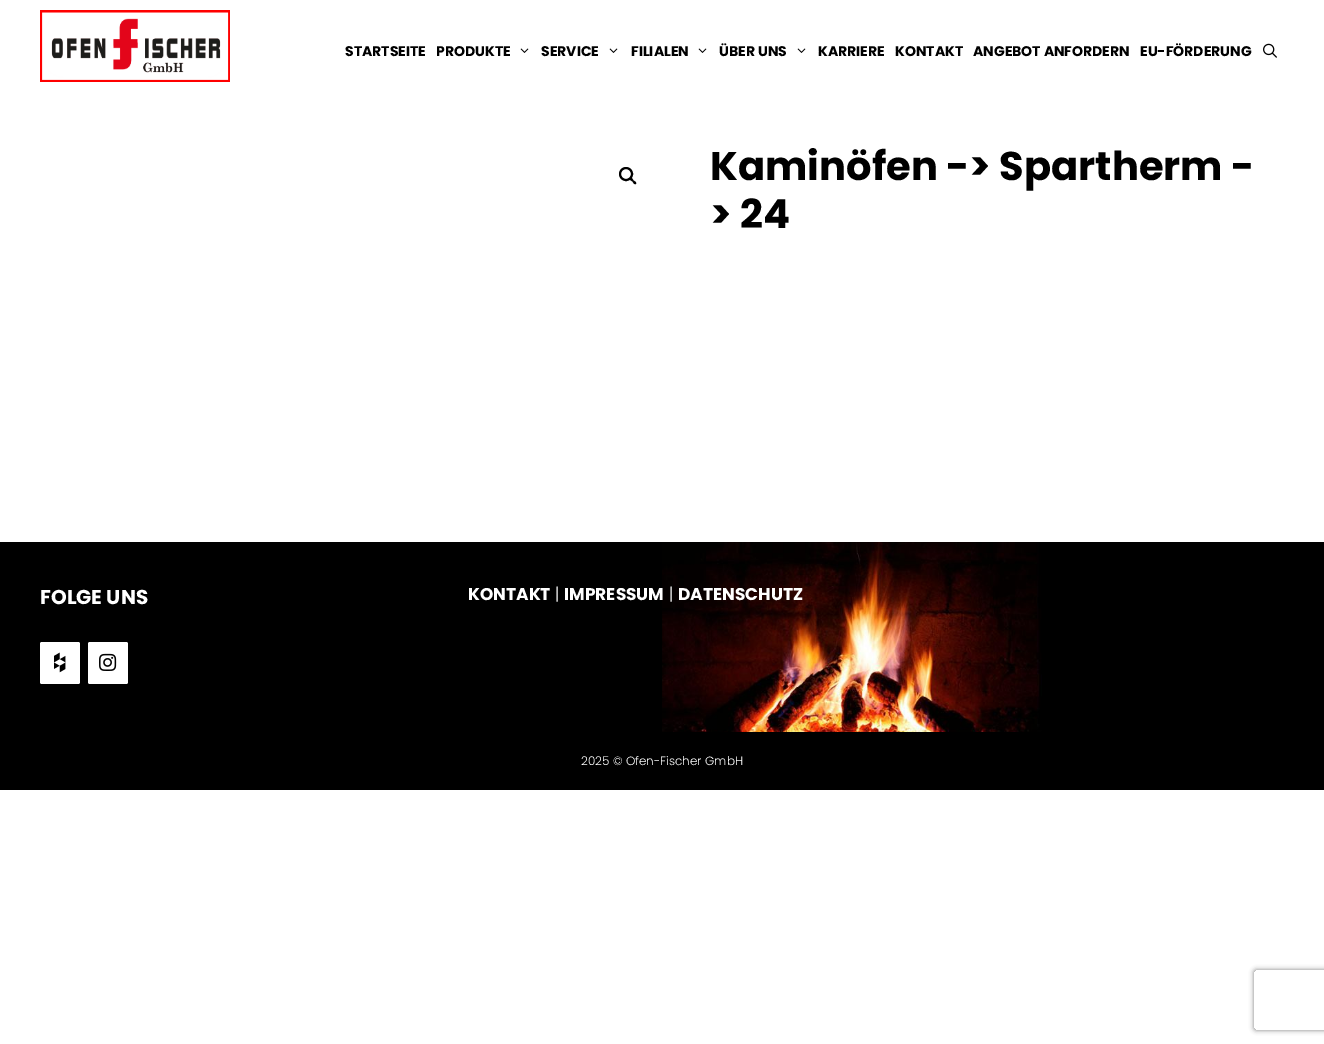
%!PS-Adobe-3.0
%%BoundingBox: 0 0 1324 1044
%%LanguageLevel: 3
%%Pages: 1
%%EndComments
%%BeginProlog
/setink { 3 { 255 div 3 1 roll } repeat setrgbcolor } def
/usefont { [ exch dup neg 0 0 3 -1 roll 0 0 ] selectfont } def
/drawtext { setink usefont moveto show } def
/fillbox { setink rectfill } def
/setalpha { dup .setfillconstantalpha .setstrokeconstantalpha } def
/disc { newpath 0 360 arc closepath } def
/rrect { 5 dict begin { /r /h /w /y /x } { exch def } forall
  x r add y moveto x w add y 2 copy h add r arct x w add y h add x 1 index r arct
  x y h add x y r arct x y 2 copy exch w add exch r arct closepath end } def
/softshadow { 12 dict begin { /a /b /q /h /w /y /x } { exch def } forall gsave /was 0 def
  9 -2 -9 { dup b mul 4 div /e exch def 1 sub .425 mul 2.718 exch exp 1 add a .99 .min exch div /now exch def
    1 1 now sub 1 was sub div sub setalpha /was now def
    w h .min e 2 mul add 0 gt { x e sub y e sub w e 2 mul add h e 2 mul add
      q e add b .6 mul add w h .min 2 div e add .min 0 .max rrect fill } if } for grestore end } def
/drawimage { 5 dict begin { /h /w /y /x /name } { exch def } forall
  gsave x y translate w h scale
  w h 8 [w 0 0 h 0 0] name (r) file false 3 colorimage grestore end } def
%%EndProlog
%%BeginSetup
<< /PageSize [1324 1044] /PageUsesTransparency true >> setpagedevice
%%EndSetup
%%Page: 1 1
0 .pushpdf14devicefilter
0 1044 translate 1 -1 scale
4 setmiterlimit
0 0 1324 1044 255 255 255 fillbox
(assets/img1.rgb) 40 10 190 72 drawimage
(STARTSEITE) 345 56 /Poppins-Bold 14 0 0 0 drawtext
(PRODUKTE) 436 56 /Poppins-Bold 14 0 0 0 drawtext
(assets/img2.rgb) 520 48 9 5 drawimage
(SERVICE) 541 56 /Poppins-Bold 14 0 0 0 drawtext
(assets/img2.rgb) 609 48 9 5 drawimage
(FILIALEN) 631 56 /Poppins-Bold 14 0 0 0 drawtext
(assets/img2.rgb) 698 48 9 5 drawimage
(ÜBER UNS) 719 56 /Poppins-Bold 14 0 0 0 drawtext
(assets/img2.rgb) 797 48 9 5 drawimage
(KARRIERE) 818 56 /Poppins-Bold 14 0 0 0 drawtext
(KONTAKT) 895 56 /Poppins-Bold 14 0 0 0 drawtext
(ANGEBOT ANFORDERN) 973 56 /Poppins-Bold 14 0 0 0 drawtext
(EU-FÖRDERUNG) 1140 56 /Poppins-Bold 14 0 0 0 drawtext
(assets/img3.rgb) 1263 43 14 15 drawimage
2 setlinewidth
626 174 6 disc stroke
630 178 moveto 631.5 177 633 179.5 633.5 180.5 curveto 634.5 181 637 182.5 636 184 curveto 634.5 185 633 182.5 632.5 181.5 curveto 631.5 181 629 179.5 630 178 curveto closepath fill
(Kaminöfen -> Spartherm -) 710 180 /Poppins-Bold 40 0 0 0 drawtext
(> 24) 710 228 /Poppins-Bold 40 0 0 0 drawtext
0 542 1324 248 0 0 0 fillbox
(assets/img4.rgb) 662 542 380 190 drawimage
(FOLGE UNS) 40 604 /Poppins-Bold 20 255 255 255 drawtext
40 642 40 42 2 rrect fill
(assets/img5.rgb) 54 652 12 21 drawimage
88 642 40 42 2 rrect fill
(assets/img6.rgb) 99 653 18 18 drawimage
(KONTAKT) 468 600 /Poppins-Bold 17 255 255 255 drawtext
(|) 555 600 /Poppins-Light 17 255 255 255 drawtext
(IMPRESSUM) 564 600 /Poppins-Bold 17 255 255 255 drawtext
(|) 669 600 /Poppins-Light 17 255 255 255 drawtext
(DATENSCHUTZ) 678 600 /Poppins-Bold 17 255 255 255 drawtext
(2025 © Ofen-Fischer GmbH) 581 765 /Poppins-Light 12 255 255 255 drawtext
gsave
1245 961 moveto 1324 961 lineto 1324 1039 lineto 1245 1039 lineto closepath 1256 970 moveto 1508 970 lineto 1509 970 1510 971 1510 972 curveto 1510 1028 lineto 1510 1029 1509 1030 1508 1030 curveto 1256 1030 lineto 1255 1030 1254 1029 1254 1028 curveto 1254 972 lineto 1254 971 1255 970 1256 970 curveto closepath eoclip newpath
128 128 128 setink
1254 970 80 60 2 2.5 1 softshadow
grestore
.poppdf14devicefilter showpage
%%EOF
